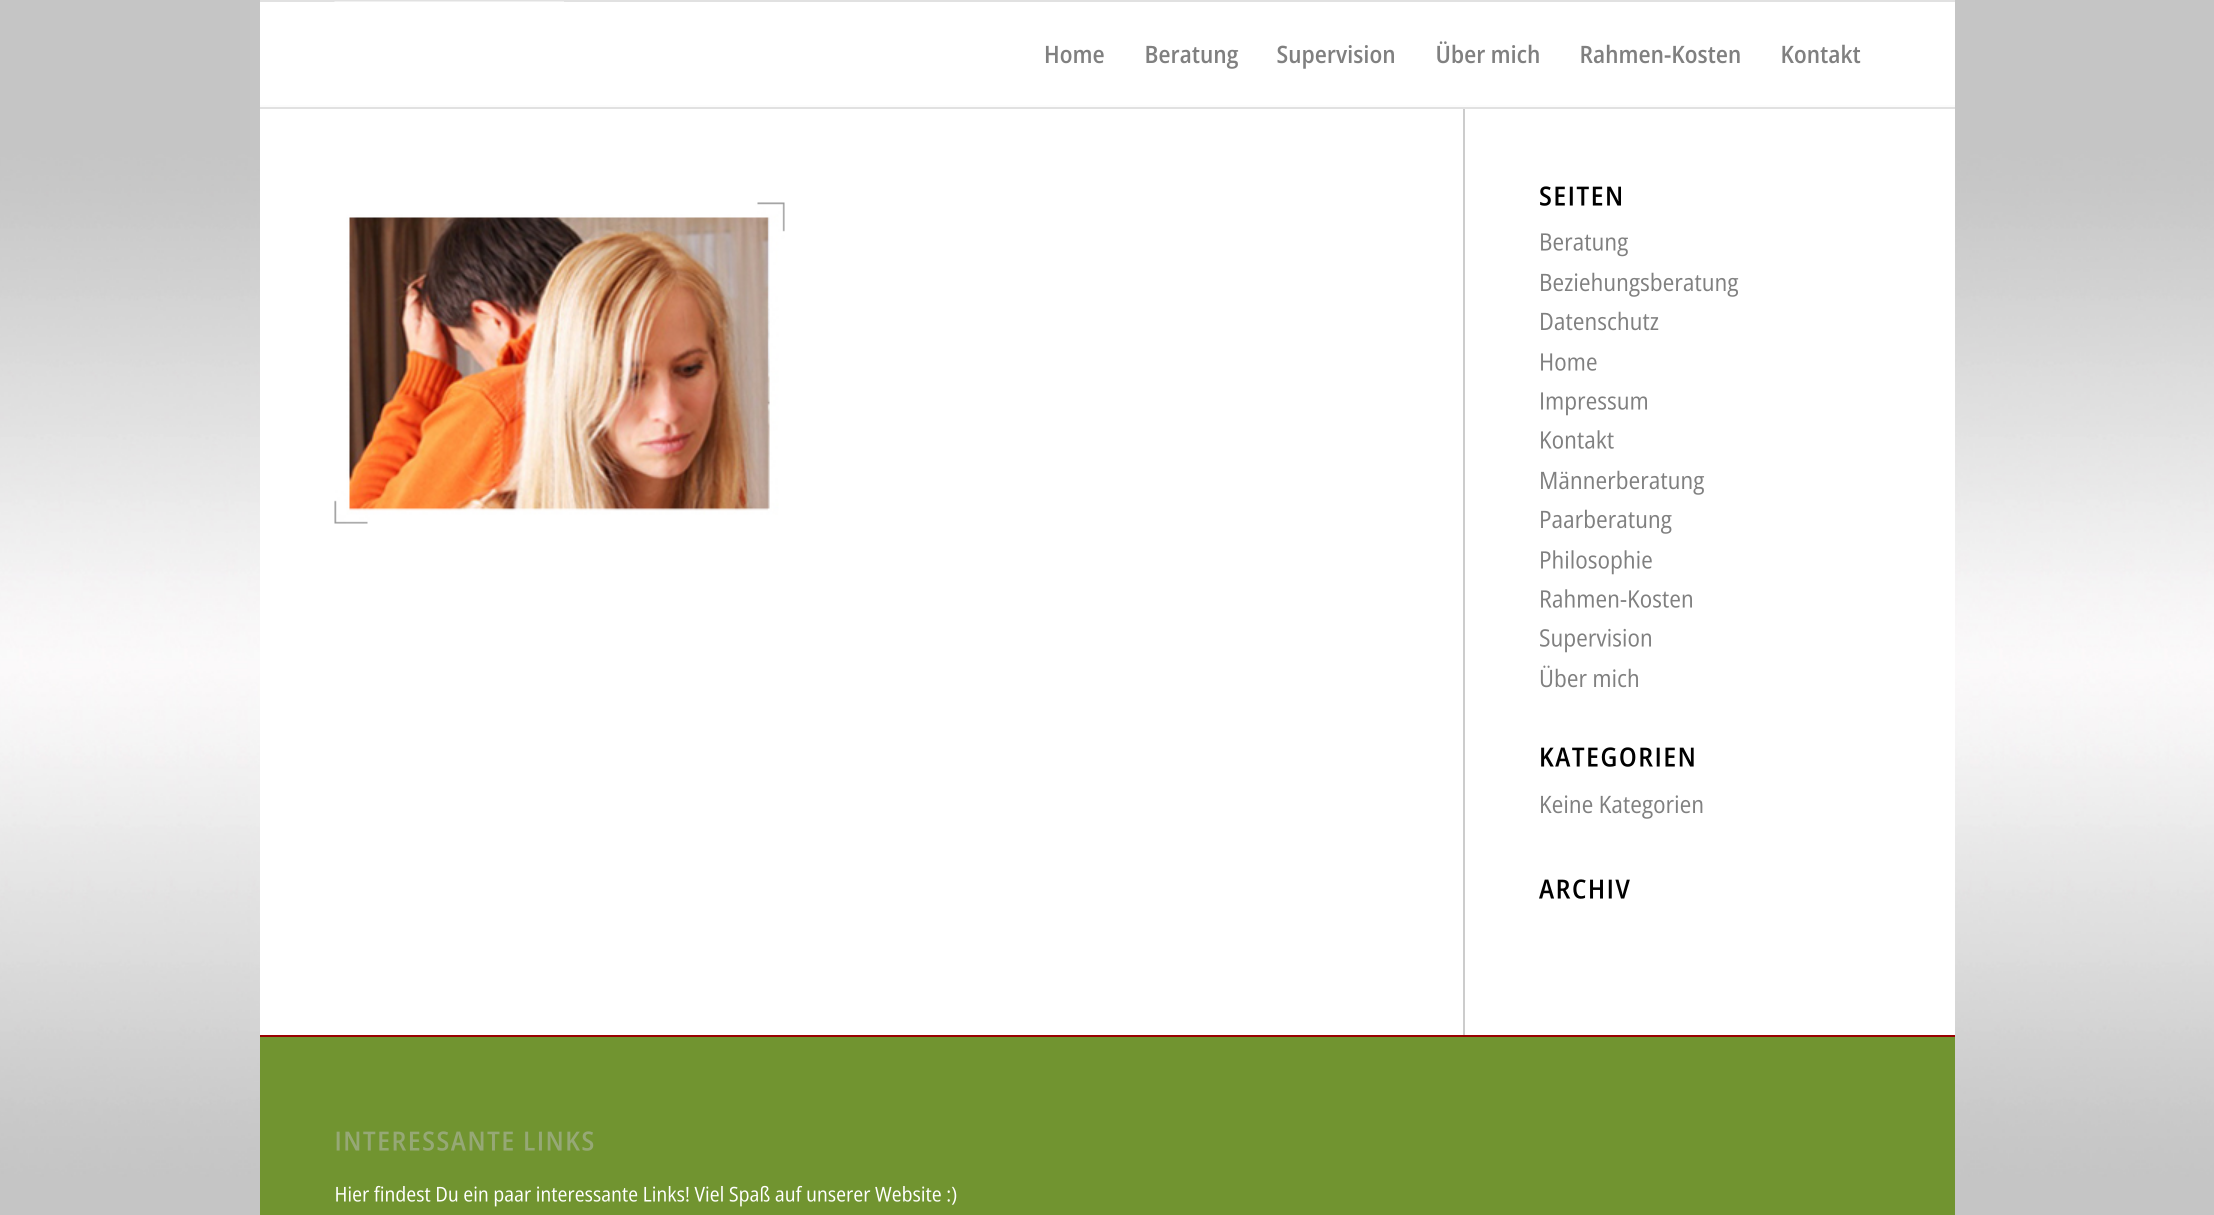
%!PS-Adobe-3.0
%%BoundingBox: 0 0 2214 1215
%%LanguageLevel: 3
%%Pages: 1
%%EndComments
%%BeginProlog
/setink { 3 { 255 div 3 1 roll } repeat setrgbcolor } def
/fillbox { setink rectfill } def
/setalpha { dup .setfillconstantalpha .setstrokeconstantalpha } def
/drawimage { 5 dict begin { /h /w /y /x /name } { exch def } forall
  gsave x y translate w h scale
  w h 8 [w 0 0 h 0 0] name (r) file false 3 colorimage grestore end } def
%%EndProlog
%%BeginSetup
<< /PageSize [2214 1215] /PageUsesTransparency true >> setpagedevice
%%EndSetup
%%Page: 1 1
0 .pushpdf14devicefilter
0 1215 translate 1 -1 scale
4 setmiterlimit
0 0 2214 1215 255 255 255 fillbox
(assets/img1.rgb) 0 0 2214 1215 drawimage
260 0 1695 2 225 225 225 fillbox
260 2 1695 1033 255 255 255 fillbox
1463 107 2 928 204 204 204 fillbox
260 107 1695 2 225 225 225 fillbox
(assets/img2.rgb) 334 1 230 1 drawimage
(assets/img3.rgb) 1045 45 59 19 drawimage
(assets/img4.rgb) 1146 45 93 24 drawimage
(assets/img5.rgb) 1277 45 117 24 drawimage
(assets/img6.rgb) 1437 41 102 23 drawimage
(assets/img7.rgb) 1581 44 159 20 drawimage
(assets/img8.rgb) 1782 44 79 20 drawimage
260 105 1695 2 204 204 204 fillbox
0.95 setalpha
260 105 1695 2 255 255 255 fillbox
1 setalpha
(assets/img9.rgb) 334 202 451 322 drawimage
(assets/img10.rgb) 1540 186 81 20 drawimage
(assets/img11.rgb) 1541 233 87 24 drawimage
(assets/img12.rgb) 1541 272 198 25 drawimage
(assets/img13.rgb) 1541 311 118 20 drawimage
(assets/img14.rgb) 1541 353 56 18 drawimage
(assets/img15.rgb) 1541 392 106 24 drawimage
(assets/img16.rgb) 1541 430 73 19 drawimage
(assets/img17.rgb) 1541 470 164 25 drawimage
(assets/img18.rgb) 1541 509 131 25 drawimage
(assets/img19.rgb) 1541 550 111 25 drawimage
(assets/img20.rgb) 1541 589 151 19 drawimage
(assets/img21.rgb) 1540 628 111 25 drawimage
(assets/img22.rgb) 1540 665 98 23 drawimage
(assets/img23.rgb) 1541 747 153 20 drawimage
(assets/img24.rgb) 1541 795 162 24 drawimage
(assets/img25.rgb) 1539 879 91 20 drawimage
260 1037 1695 178 113 148 48 fillbox
260 1035 1695 2 153 0 0 fillbox
(assets/img26.rgb) 336 1131 258 20 drawimage
(assets/img27.rgb) 336 1185 621 22 drawimage
.poppdf14devicefilter showpage
%%EOF
